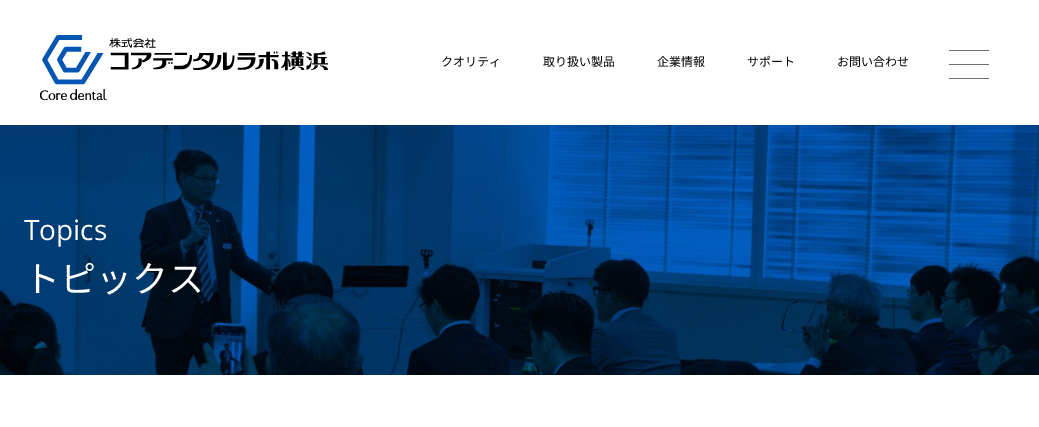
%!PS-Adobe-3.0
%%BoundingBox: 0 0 1039 427
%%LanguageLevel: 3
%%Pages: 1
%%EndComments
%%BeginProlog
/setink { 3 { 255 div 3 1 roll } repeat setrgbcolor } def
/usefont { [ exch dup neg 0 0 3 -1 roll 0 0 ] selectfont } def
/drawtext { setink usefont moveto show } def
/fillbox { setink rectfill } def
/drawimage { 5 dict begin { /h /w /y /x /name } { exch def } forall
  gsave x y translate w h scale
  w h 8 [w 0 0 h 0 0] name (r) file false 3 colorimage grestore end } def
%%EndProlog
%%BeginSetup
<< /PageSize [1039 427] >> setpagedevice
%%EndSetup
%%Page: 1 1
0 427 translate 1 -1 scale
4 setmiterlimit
0 0 1039 427 255 255 255 fillbox
(assets/img1.rgb) 40 35 288 65 drawimage
(クオリティ) 441 66 /NotoSansJP-Regular 12 0 0 0 drawtext
(取り扱い製品) 543 66 /NotoSansJP-Regular 12 0 0 0 drawtext
(企業情報) 657 66 /NotoSansJP-Regular 12 0 0 0 drawtext
(サポート) 747 66 /NotoSansJP-Regular 12 0 0 0 drawtext
(お問い合わせ) 837 66 /NotoSansJP-Regular 12 0 0 0 drawtext
949 50 40 1 112 112 112 fillbox
949 64 40 1 112 112 112 fillbox
949 78 40 1 112 112 112 fillbox
(assets/img2.rgb) 0 125 1039 250 drawimage
(Topics) 24 240 /OpenSans-Regular 28 255 255 255 drawtext
(トピックス) 24 292 /NotoSansJP-Regular 36 255 255 255 drawtext
showpage
%%EOF
